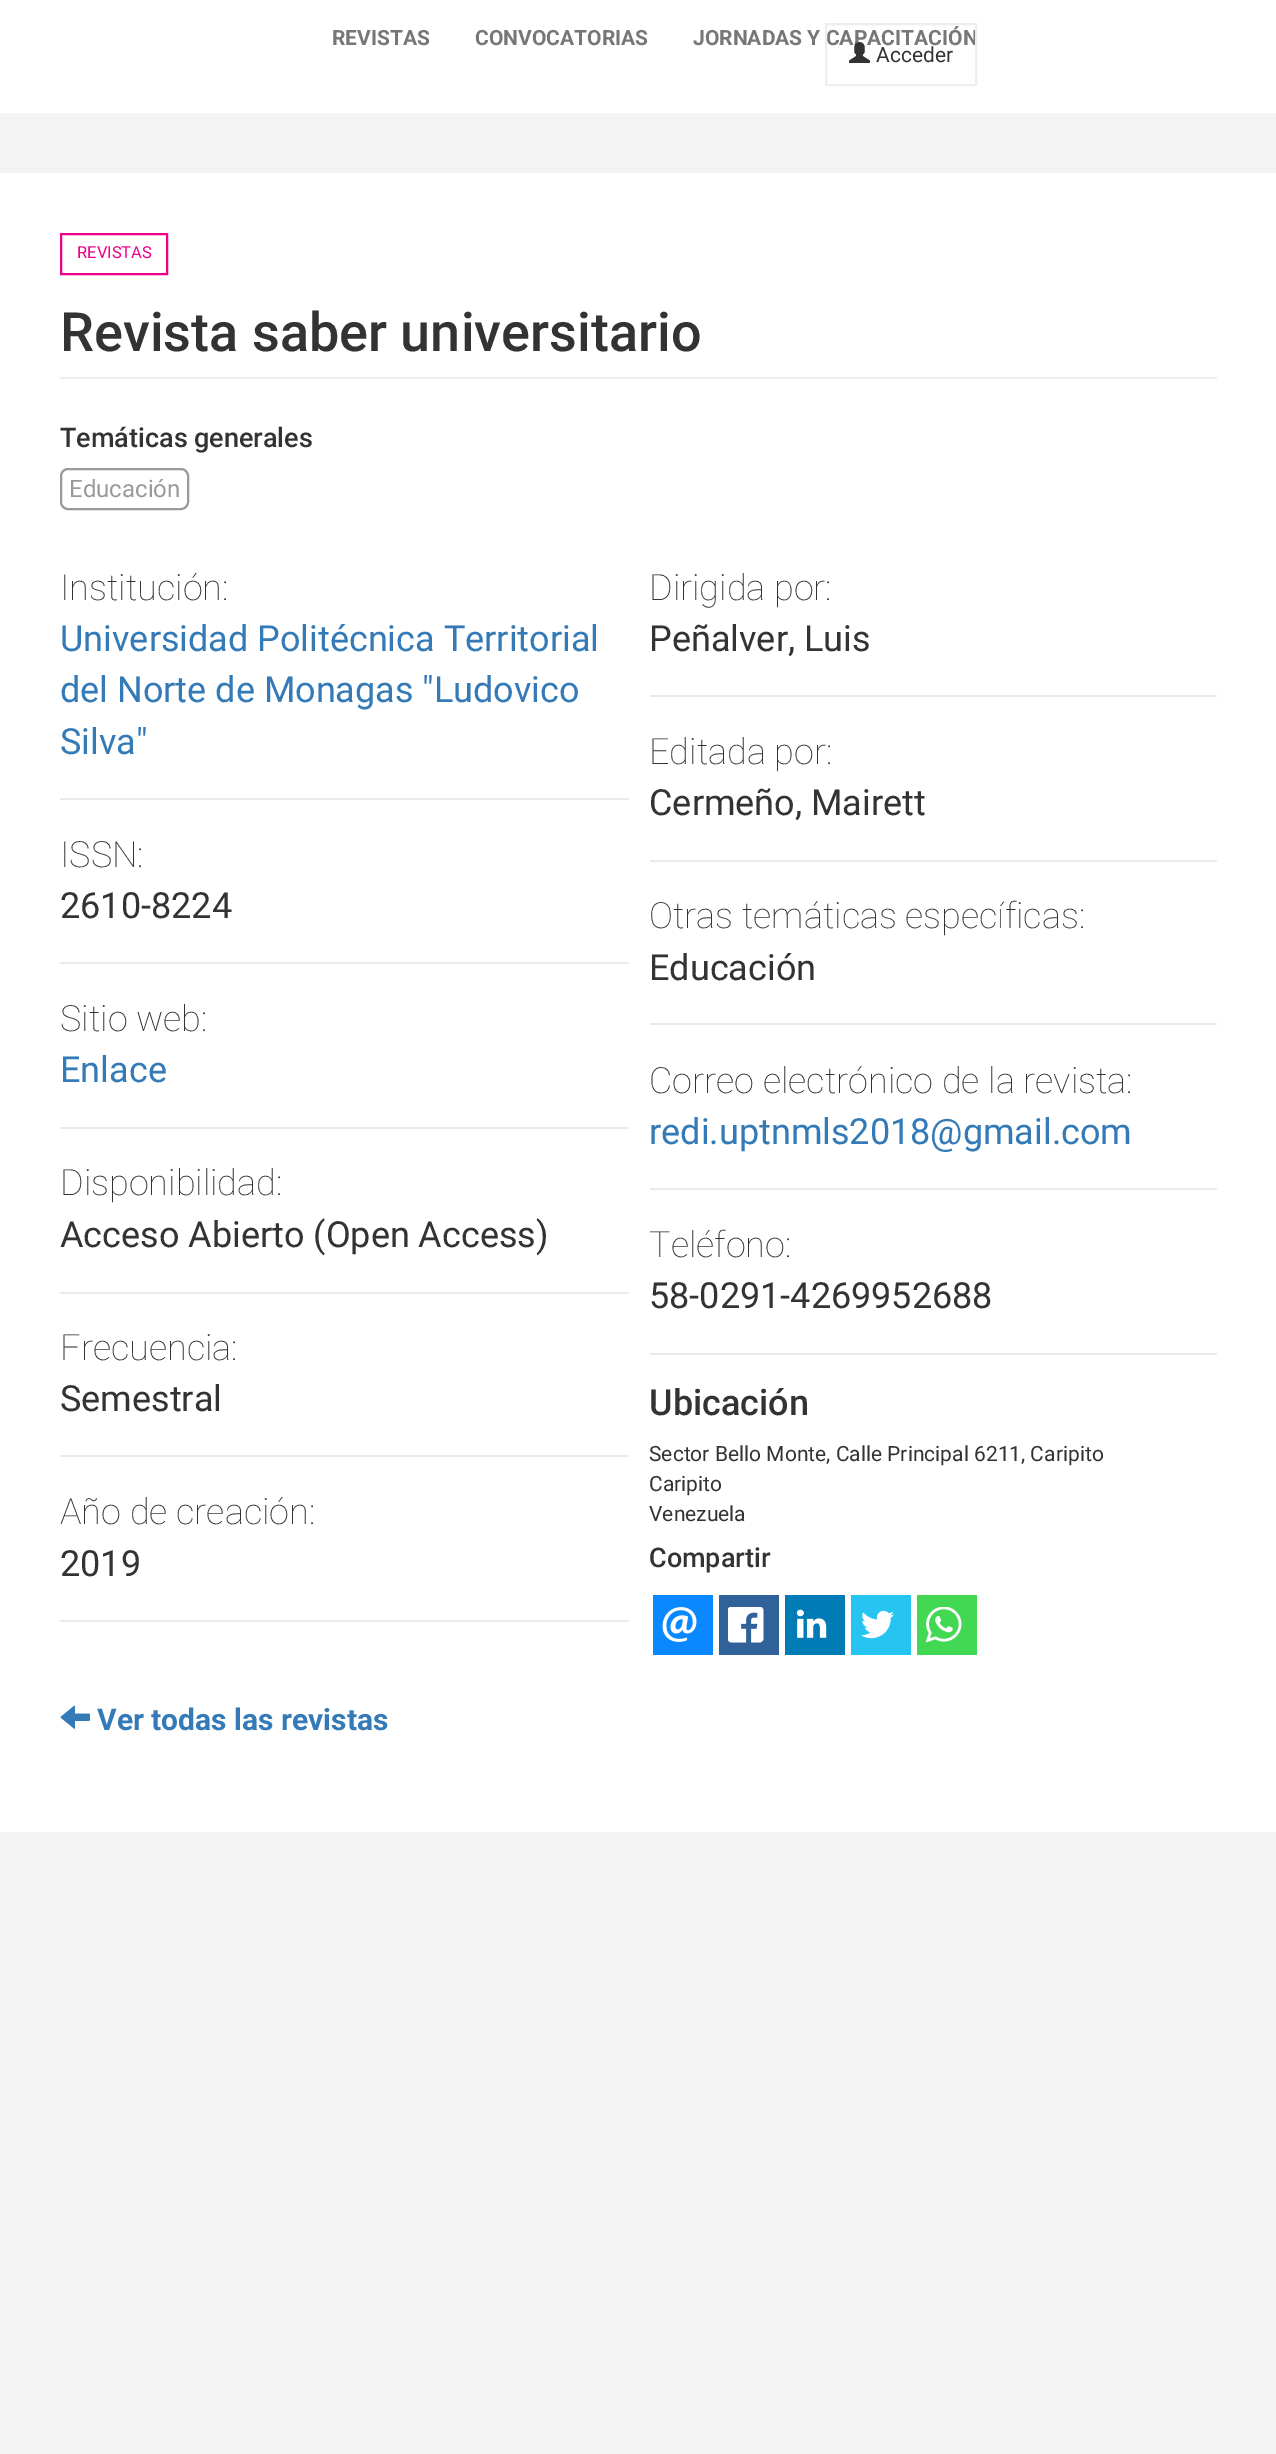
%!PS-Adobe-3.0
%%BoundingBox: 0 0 1276 2454
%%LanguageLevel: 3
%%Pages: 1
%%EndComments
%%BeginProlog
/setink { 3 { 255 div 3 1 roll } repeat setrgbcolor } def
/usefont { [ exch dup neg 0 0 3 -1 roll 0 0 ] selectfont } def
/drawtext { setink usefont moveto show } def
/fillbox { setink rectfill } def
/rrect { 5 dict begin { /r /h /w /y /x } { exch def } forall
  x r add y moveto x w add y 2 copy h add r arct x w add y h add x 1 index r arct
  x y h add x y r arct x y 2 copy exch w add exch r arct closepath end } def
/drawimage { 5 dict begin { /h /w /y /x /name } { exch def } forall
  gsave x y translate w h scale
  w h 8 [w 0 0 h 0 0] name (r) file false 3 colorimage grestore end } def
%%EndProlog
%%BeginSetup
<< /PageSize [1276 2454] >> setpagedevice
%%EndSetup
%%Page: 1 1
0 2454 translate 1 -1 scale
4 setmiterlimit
0 0 1276 2454 243 243 243 fillbox
0 0 1276 113 255 255 255 fillbox
(REVISTAS) 332 45 /Roboto-Bold 21 119 119 119 drawtext
(CONVOCATORIAS) 475 45 /Roboto-Bold 21 119 119 119 drawtext
(JORNADAS Y CAPACITACIÓN) 693 45 /Roboto-Bold 21 119 119 119 drawtext
238 238 238 setink
2 setlinewidth
826 24 150 61 rectstroke
(assets/img1.rgb) 849 42 21 21 drawimage
(Acceder) 876 62 /Roboto-Regular 21 51 51 51 drawtext
0 173 1276 1659 255 255 255 fillbox
238 0 139 setink
61 234 106 40 rectstroke
(REVISTAS) 77 258 /Roboto-Regular 16.5 238 0 139 drawtext
60 377 1157 2 238 238 238 fillbox
(Revista saber universitario) 60 351 /Roboto-Medium 54 51 51 51 drawtext
(Temáticas generales) 60 447 /Roboto-Medium 27 51 51 51 drawtext
153 153 153 setink
61 469 127 40 7 rrect stroke
(Educación) 69 497 /Roboto-Regular 24 153 153 153 drawtext
60 798 569 2 234 234 234 fillbox
(Institución:) 60 600 /Roboto-Thin 36 51 51 51 drawtext
(Universidad Politécnica Territorial) 60 651 /Roboto-Regular 36 51 122 183 drawtext
(del Norte de Monagas "Ludovico) 60 702 /Roboto-Regular 36 51 122 183 drawtext
(Silva") 60 754 /Roboto-Regular 36 51 122 183 drawtext
650 695 567 2 234 234 234 fillbox
(Dirigida por:) 649 600 /Roboto-Thin 36 51 51 51 drawtext
(Peñalver, Luis) 649 651 /Roboto-Regular 36 51 51 51 drawtext
650 860 567 2 234 234 234 fillbox
(Editada por:) 649 764 /Roboto-Thin 36 51 51 51 drawtext
(Cermeño, Mairett) 649 815 /Roboto-Regular 36 51 51 51 drawtext
60 962 569 2 234 234 234 fillbox
(ISSN:) 60 867 /Roboto-Thin 36 51 51 51 drawtext
(2610-8224) 60 918 /Roboto-Regular 36 51 51 51 drawtext
650 1023 567 2 234 234 234 fillbox
(Otras temáticas específicas:) 649 928 /Roboto-Thin 36 51 51 51 drawtext
(Educación) 649 980 /Roboto-Regular 36 51 51 51 drawtext
60 1127 569 2 234 234 234 fillbox
(Sitio web:) 60 1031 /Roboto-Thin 36 51 51 51 drawtext
(Enlace) 60 1082 /Roboto-Regular 36 51 122 183 drawtext
650 1188 567 2 234 234 234 fillbox
(Correo electrónico de la revista:) 649 1093 /Roboto-Thin 36 51 51 51 drawtext
(redi.uptnmls2018@gmail.com) 649 1144 /Roboto-Regular 36 51 122 183 drawtext
60 1292 569 2 234 234 234 fillbox
(Disponibilidad:) 60 1195 /Roboto-Thin 36 51 51 51 drawtext
(Acceso Abierto \(Open Access\)) 60 1247 /Roboto-Regular 36 51 51 51 drawtext
650 1353 567 2 234 234 234 fillbox
(Teléfono:) 649 1257 /Roboto-Thin 36 51 51 51 drawtext
(58-0291-4269952688) 649 1308 /Roboto-Regular 36 51 51 51 drawtext
60 1455 569 2 234 234 234 fillbox
(Frecuencia:) 60 1360 /Roboto-Thin 36 51 51 51 drawtext
(Semestral) 60 1411 /Roboto-Regular 36 51 51 51 drawtext
(Ubicación) 649 1415 /Roboto-Medium 36 51 51 51 drawtext
(Sector Bello Monte, Calle Principal 6211, Caripito) 649 1461 /Roboto-Regular 21 51 51 51 drawtext
(Caripito) 649 1491 /Roboto-Regular 21 51 51 51 drawtext
(Venezuela) 649 1521 /Roboto-Regular 21 51 51 51 drawtext
60 1620 569 2 234 234 234 fillbox
(Año de creación:) 60 1524 /Roboto-Thin 36 51 51 51 drawtext
(2019) 60 1576 /Roboto-Regular 36 51 51 51 drawtext
(Compartir) 649 1567 /Roboto-Medium 27 51 51 51 drawtext
653 1595 60 60 10 136 255 fillbox
(assets/img2.rgb) 662 1607 35 35 drawimage
719 1595 60 60 48 97 153 fillbox
(assets/img3.rgb) 728 1607 36 36 drawimage
785 1595 60 60 0 123 182 fillbox
(assets/img4.rgb) 796 1609 31 29 drawimage
851 1595 60 60 38 196 241 fillbox
(assets/img5.rgb) 861 1610 33 29 drawimage
917 1595 60 60 67 216 84 fillbox
(assets/img6.rgb) 926 1607 36 36 drawimage
(assets/img7.rgb) 60 1705 30 24 drawimage
(Ver todas las revistas) 97 1730 /Roboto-Bold 30 51 122 183 drawtext
showpage
%%EOF
